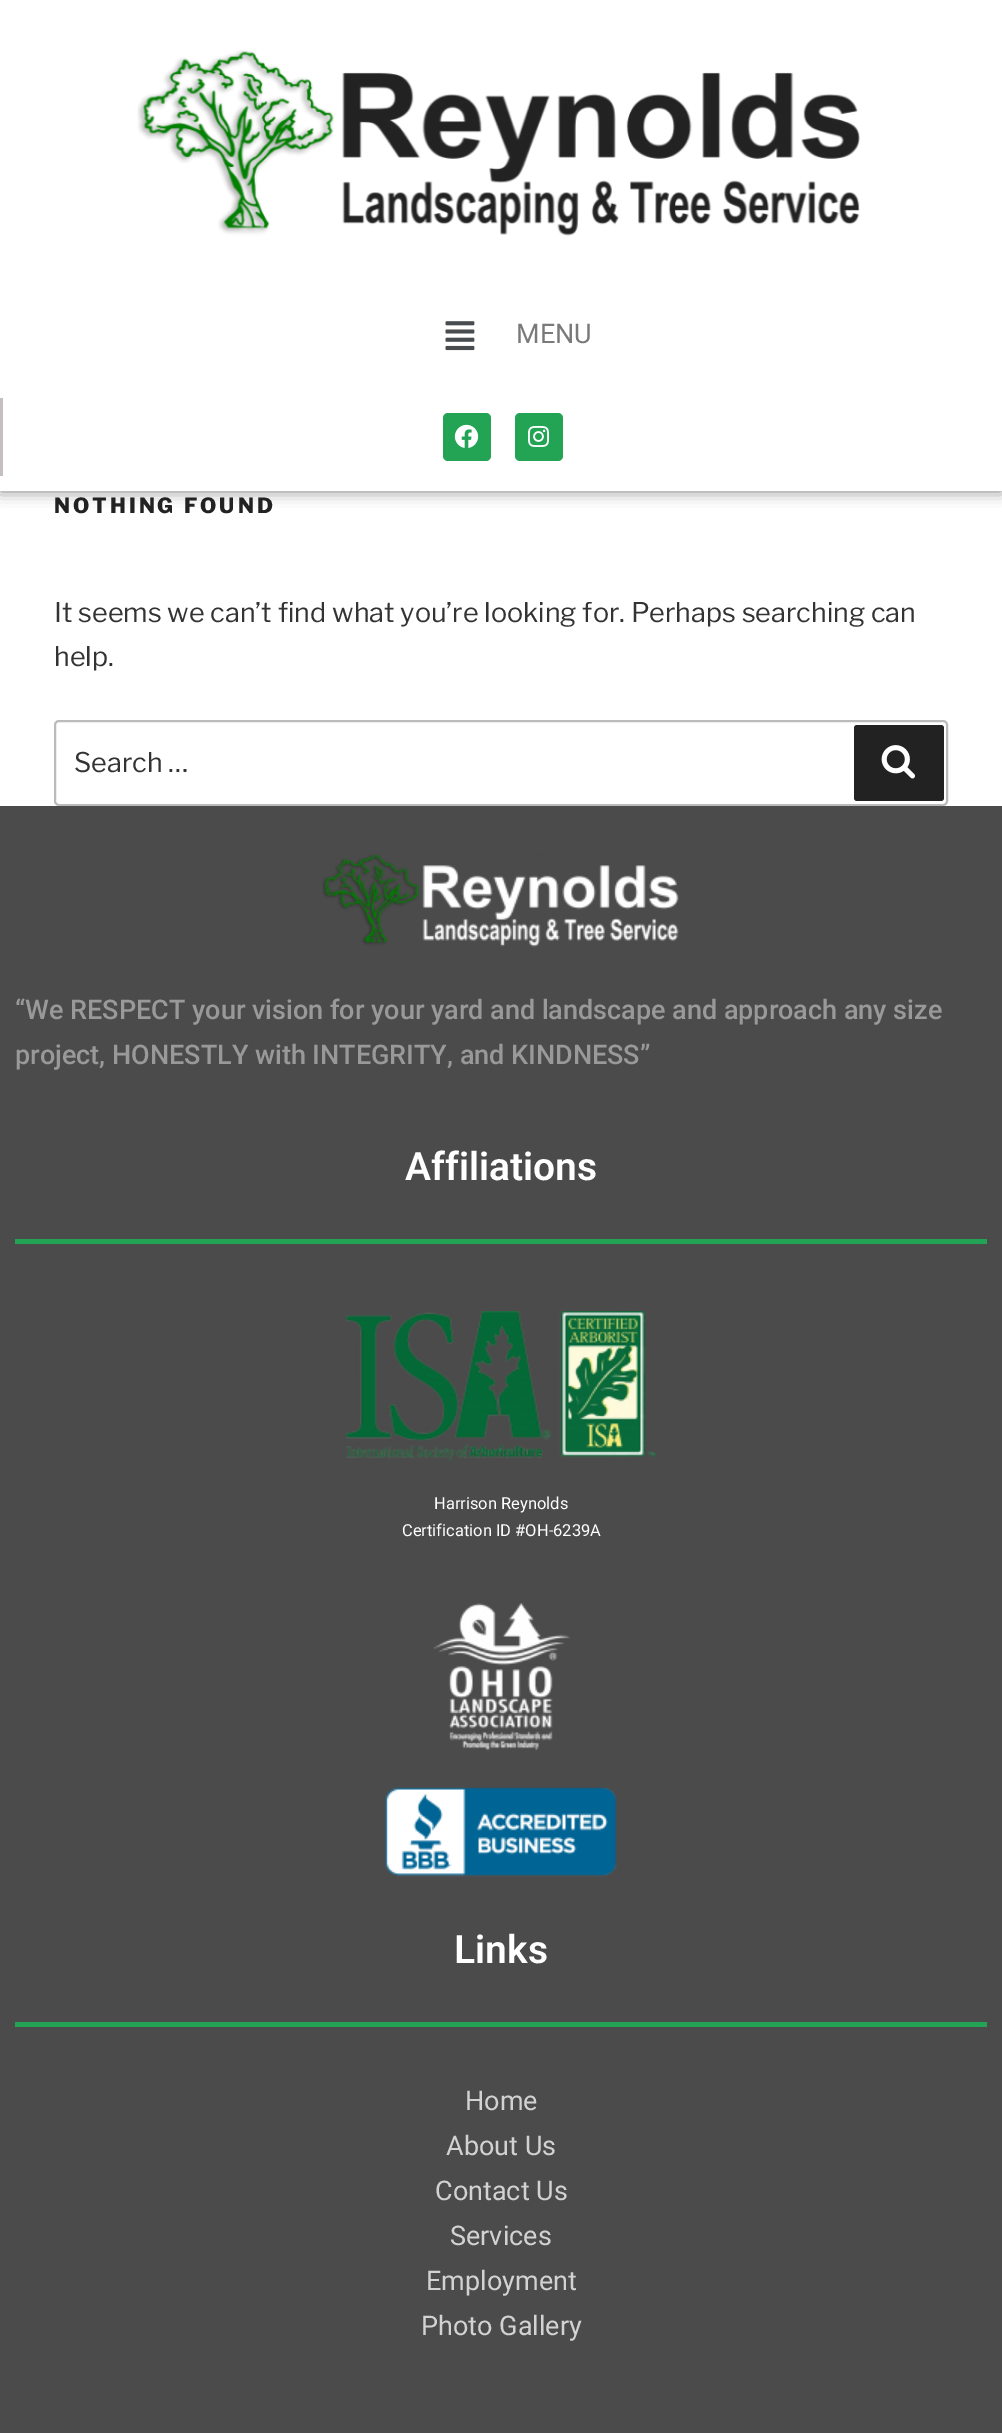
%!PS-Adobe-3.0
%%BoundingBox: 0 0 1002 2433
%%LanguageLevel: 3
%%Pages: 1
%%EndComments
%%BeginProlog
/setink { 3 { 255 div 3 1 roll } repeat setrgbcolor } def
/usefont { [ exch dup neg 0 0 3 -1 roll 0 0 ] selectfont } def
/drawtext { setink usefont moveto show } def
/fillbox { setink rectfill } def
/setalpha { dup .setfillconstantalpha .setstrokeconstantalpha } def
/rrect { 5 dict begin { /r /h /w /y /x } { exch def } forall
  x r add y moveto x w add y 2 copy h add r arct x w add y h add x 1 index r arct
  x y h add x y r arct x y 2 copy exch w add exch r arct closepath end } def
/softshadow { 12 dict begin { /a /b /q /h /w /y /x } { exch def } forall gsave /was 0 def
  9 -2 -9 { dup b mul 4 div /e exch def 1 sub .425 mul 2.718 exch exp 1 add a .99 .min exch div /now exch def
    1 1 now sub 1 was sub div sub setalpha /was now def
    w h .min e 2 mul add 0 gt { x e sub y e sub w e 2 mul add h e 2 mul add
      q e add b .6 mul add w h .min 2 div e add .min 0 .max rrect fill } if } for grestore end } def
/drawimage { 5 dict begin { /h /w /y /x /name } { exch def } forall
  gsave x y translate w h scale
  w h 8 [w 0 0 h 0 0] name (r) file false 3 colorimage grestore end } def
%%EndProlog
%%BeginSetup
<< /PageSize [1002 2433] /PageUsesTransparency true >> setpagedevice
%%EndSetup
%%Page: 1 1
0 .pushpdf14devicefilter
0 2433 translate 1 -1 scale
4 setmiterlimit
0 0 1002 2433 255 255 255 fillbox
0 0 0 setink
0 0 1002 491 0 7.5 0.5 softshadow
0 0 1002 491 255 255 255 fillbox
(assets/img1.rgb) 137 50 723 186 drawimage
(assets/img2.rgb) 445 321 30 30 drawimage
(MENU) 516 343 /Roboto-Regular 27 122 122 122 drawtext
0 398 3 78 197 191 191 fillbox
35 164 85 setink
443 413 48 48 5 rrect fill
(assets/img3.rgb) 454 424 25 24 drawimage
515 413 48 48 5 rrect fill
(assets/img4.rgb) 528 425 22 22 drawimage
/LibreFranklin-ExtraBold 21 usefont
34 34 34 setink
54 513 moveto 3 0 (NOTHING FOUND) ashow
(It seems we can’t find what you’re looking for. Perhaps searching can) 54 622 /LibreFranklin-Regular 27 51 51 51 drawtext
(help.) 54 666 /LibreFranklin-Regular 27 51 51 51 drawtext
187 187 187 setink
2 setlinewidth
55 721 892 84 4 rrect stroke
(Search …) 74 772 /LibreFranklin-Regular 27 51 51 51 drawtext
34 34 34 setink
854 725 90 76 3 rrect fill
(assets/img5.rgb) 881 745 34 34 drawimage
0 806 1002 1627 75 75 75 fillbox
(assets/img6.rgb) 322 854 357 93 drawimage
(“We RESPECT your vision for your yard and landscape and approach any size) 15 1019 /Roboto-Medium 27 153 153 153 drawtext
(project, HONESTLY with INTEGRITY, and KINDNESS”) 15 1064 /Roboto-Medium 27 153 153 153 drawtext
(Affiliations) 405 1180 /Roboto-SemiBold 39 255 255 255 drawtext
15 1239 972 5 35 164 85 fillbox
(assets/img7.rgb) 346 1311 310 150 drawimage
(Harrison Reynolds) 434 1509 /Roboto-Regular 16.5 255 255 255 drawtext
(Certification ID #OH-6239A) 402 1536 /Roboto-Regular 16.5 255 255 255 drawtext
(assets/img8.rgb) 433 1603 137 148 drawimage
(assets/img9.rgb) 385 1787 232 90 drawimage
(Links) 454 1963 /Roboto-SemiBold 39 255 255 255 drawtext
15 2022 972 5 35 164 85 fillbox
(Home) 465 2110 /Roboto-Regular 27 210 210 210 drawtext
(About Us) 446 2155 /Roboto-Regular 27 210 210 210 drawtext
(Contact Us) 435 2200 /Roboto-Regular 27 210 210 210 drawtext
(Services) 450 2245 /Roboto-Regular 27 210 210 210 drawtext
(Employment) 426 2290 /Roboto-Regular 27 210 210 210 drawtext
(Photo Gallery) 421 2335 /Roboto-Regular 27 210 210 210 drawtext
.poppdf14devicefilter showpage
%%EOF
